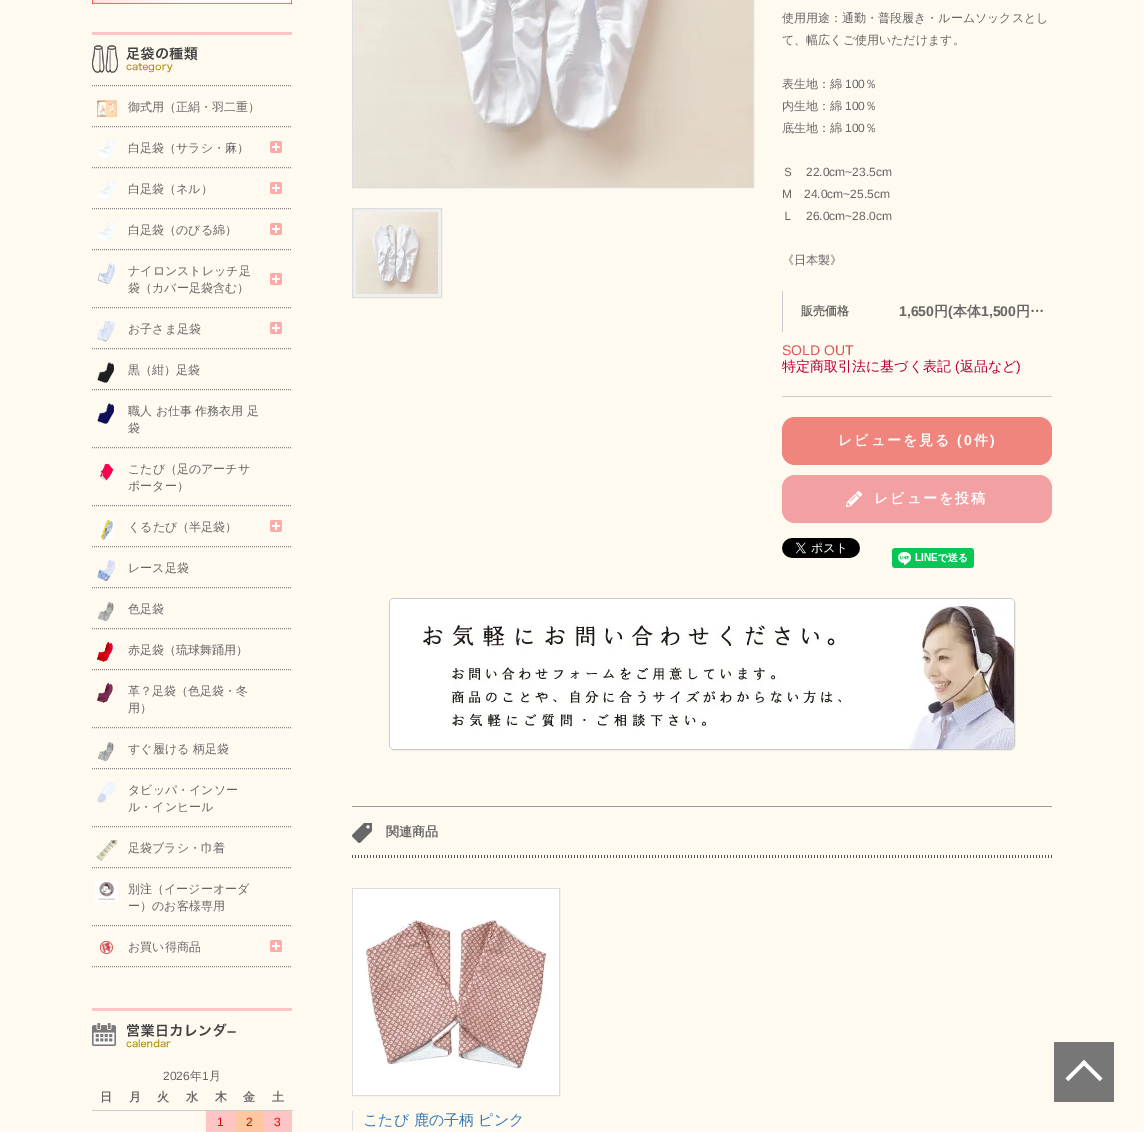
%!PS-Adobe-3.0
%%BoundingBox: 0 0 1144 1132
%%LanguageLevel: 3
%%Pages: 1
%%EndComments
%%BeginProlog
/setink { 3 { 255 div 3 1 roll } repeat setrgbcolor } def
/usefont { [ exch dup neg 0 0 3 -1 roll 0 0 ] selectfont } def
/drawtext { setink usefont moveto show } def
/fillbox { setink rectfill } def
/rrect { 5 dict begin { /r /h /w /y /x } { exch def } forall
  x r add y moveto x w add y 2 copy h add r arct x w add y h add x 1 index r arct
  x y h add x y r arct x y 2 copy exch w add exch r arct closepath end } def
/drawimage { 5 dict begin { /h /w /y /x /name } { exch def } forall
  gsave x y translate w h scale
  w h 8 [w 0 0 h 0 0] name (r) file false 3 colorimage grestore end } def
%%EndProlog
%%BeginSetup
<< /PageSize [1144 1132] >> setpagedevice
%%EndSetup
%%Page: 1 1
0 1132 translate 1 -1 scale
4 setmiterlimit
0 0 1144 1132 255 250 240 fillbox
(assets/img1.rgb) 92 0 200 4 drawimage
92 32 200 3 255 197 196 fillbox
(assets/img2.rgb) 92 45 106 28 drawimage
131 131 131 setink
[1 1] 0 setdash
92 85.5 moveto 292 85.5 lineto stroke
(assets/img3.rgb) 97 99 20 19 drawimage
(御式用（正絹・羽二重）) 128 111 /WenQuanYiZenHei-Medium 12 102 102 102 drawtext
(assets/img4.rgb) 270 141 12 12 drawimage
131 131 131 setink
92 126.5 moveto 292 126.5 lineto stroke
(assets/img5.rgb) 96 140 20 21 drawimage
(白足袋（サラシ・麻）) 128 152 /WenQuanYiZenHei-Medium 12 102 102 102 drawtext
(assets/img4.rgb) 270 182 12 12 drawimage
131 131 131 setink
92 167.5 moveto 292 167.5 lineto stroke
(assets/img5.rgb) 96 181 20 21 drawimage
(白足袋（ネル）) 128 193 /WenQuanYiZenHei-Medium 12 102 102 102 drawtext
(assets/img4.rgb) 270 223 12 12 drawimage
131 131 131 setink
92 208.5 moveto 292 208.5 lineto stroke
(assets/img5.rgb) 96 222 20 21 drawimage
(白足袋（のびる綿）) 128 234 /WenQuanYiZenHei-Medium 12 102 102 102 drawtext
(assets/img4.rgb) 270 273 12 12 drawimage
131 131 131 setink
92 249.5 moveto 292 249.5 lineto stroke
(assets/img6.rgb) 97 263 19 21 drawimage
(ナイロンストレッチ足) 128 275 /WenQuanYiZenHei-Medium 12 102 102 102 drawtext
(袋（カバー足袋含む）) 128 292 /WenQuanYiZenHei-Medium 12 102 102 102 drawtext
(assets/img4.rgb) 270 322 12 12 drawimage
131 131 131 setink
92 307.5 moveto 292 307.5 lineto stroke
(assets/img7.rgb) 96 321 20 21 drawimage
(お子さま足袋) 128 333 /WenQuanYiZenHei-Medium 12 102 102 102 drawtext
131 131 131 setink
92 348.5 moveto 292 348.5 lineto stroke
(assets/img8.rgb) 97 362 17 21 drawimage
(黒（紺）足袋) 128 374 /WenQuanYiZenHei-Medium 12 102 102 102 drawtext
131 131 131 setink
92 389.5 moveto 292 389.5 lineto stroke
(assets/img9.rgb) 97 403 17 21 drawimage
(職人 お仕事 作務衣用 足) 128 415 /WenQuanYiZenHei-Medium 12 102 102 102 drawtext
(袋) 128 432 /WenQuanYiZenHei-Medium 12 102 102 102 drawtext
131 131 131 setink
92 447.5 moveto 292 447.5 lineto stroke
(assets/img10.rgb) 99 462 15 19 drawimage
(こたび（足のアーチサ) 128 473 /WenQuanYiZenHei-Medium 12 102 102 102 drawtext
(ポーター）) 128 490 /WenQuanYiZenHei-Medium 12 102 102 102 drawtext
(assets/img4.rgb) 270 520 12 12 drawimage
131 131 131 setink
92 505.5 moveto 292 505.5 lineto stroke
(assets/img11.rgb) 100 519 14 21 drawimage
(くるたび（半足袋）) 128 531 /WenQuanYiZenHei-Medium 12 102 102 102 drawtext
131 131 131 setink
92 546.5 moveto 292 546.5 lineto stroke
(assets/img12.rgb) 97 560 18 21 drawimage
(レース足袋) 128 572 /WenQuanYiZenHei-Medium 12 102 102 102 drawtext
131 131 131 setink
92 587.5 moveto 292 587.5 lineto stroke
(assets/img13.rgb) 97 602 17 19 drawimage
(色足袋) 128 613 /WenQuanYiZenHei-Medium 12 102 102 102 drawtext
131 131 131 setink
92 628.5 moveto 292 628.5 lineto stroke
(assets/img14.rgb) 96 642 17 20 drawimage
(赤足袋（琉球舞踊用）) 128 654 /WenQuanYiZenHei-Medium 12 102 102 102 drawtext
131 131 131 setink
92 669.5 moveto 292 669.5 lineto stroke
(assets/img15.rgb) 96 683 17 20 drawimage
(革？足袋（色足袋・冬) 128 695 /WenQuanYiZenHei-Medium 12 102 102 102 drawtext
(用）) 128 712 /WenQuanYiZenHei-Medium 12 102 102 102 drawtext
131 131 131 setink
92 727.5 moveto 292 727.5 lineto stroke
(assets/img13.rgb) 97 742 17 19 drawimage
(すぐ履ける 柄足袋) 128 753 /WenQuanYiZenHei-Medium 12 102 102 102 drawtext
131 131 131 setink
92 768.5 moveto 292 768.5 lineto stroke
(assets/img16.rgb) 97 782 18 21 drawimage
(タビッパ・インソー) 128 794 /WenQuanYiZenHei-Medium 12 102 102 102 drawtext
(ル・インヒール) 128 811 /WenQuanYiZenHei-Medium 12 102 102 102 drawtext
131 131 131 setink
92 826.5 moveto 292 826.5 lineto stroke
(assets/img17.rgb) 96 840 22 21 drawimage
(足袋ブラシ・巾着) 128 852 /WenQuanYiZenHei-Medium 12 102 102 102 drawtext
131 131 131 setink
92 867.5 moveto 292 867.5 lineto stroke
(assets/img18.rgb) 95 881 23 21 drawimage
(別注（イージーオーダ) 128 893 /WenQuanYiZenHei-Medium 12 102 102 102 drawtext
(ー）のお客様専用) 128 910 /WenQuanYiZenHei-Medium 12 102 102 102 drawtext
(assets/img4.rgb) 270 940 12 12 drawimage
131 131 131 setink
92 925.5 moveto 292 925.5 lineto stroke
92 966.5 moveto 292 966.5 lineto stroke
(assets/img19.rgb) 100 941 13 13 drawimage
(お買い得商品) 128 951 /WenQuanYiZenHei-Medium 12 102 102 102 drawtext
92 1008 200 3 255 197 196 fillbox
(assets/img20.rgb) 92 1023 144 25 drawimage
(2026) 163 1080 /LiberationSans-Regular 12 102 102 102 drawtext
(年) 190 1080 /WenQuanYiZenHei-Medium 12 102 102 102 drawtext
(1) 202 1080 /LiberationSans-Regular 12 102 102 102 drawtext
(月) 209 1080 /WenQuanYiZenHei-Medium 12 102 102 102 drawtext
(日) 100 1101 /WenQuanYiZenHei-Bold 12 102 102 102 drawtext
(月) 129 1101 /WenQuanYiZenHei-Bold 12 102 102 102 drawtext
(火) 157 1101 /WenQuanYiZenHei-Bold 12 102 102 102 drawtext
(水) 186 1101 /WenQuanYiZenHei-Bold 12 102 102 102 drawtext
(木) 215 1101 /WenQuanYiZenHei-Bold 12 102 102 102 drawtext
(金) 243 1101 /WenQuanYiZenHei-Bold 12 102 102 102 drawtext
92 1110 201 1 204 204 204 fillbox
(土) 272 1101 /WenQuanYiZenHei-Bold 12 102 102 102 drawtext
206 1111 29 21 255 197 196 fillbox
(1) 217 1126 /LiberationSans-Regular 12 238 0 0 drawtext
235 1111 28 21 255 200 161 fillbox
(2) 246 1126 /LiberationSans-Regular 12 238 0 0 drawtext
263 1111 29 21 255 197 196 fillbox
(3) 274 1126 /LiberationSans-Regular 12 238 0 0 drawtext
221 221 221 setink
[] 0 setdash
352.5 -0.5 401 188 rectstroke
(assets/img21.rgb) 353 0 400 187 drawimage
239 239 239 setink
352.5 208.5 moveto 441.5 208.5 lineto 441.5 297.5 lineto 352.5 297.5 lineto closepath gsave fill grestore
221 221 221 setink
stroke
(assets/img22.rgb) 356 212 82 82 drawimage
(使用用途：通勤・普段履き・ルームソックスとし) 782 22 /WenQuanYiZenHei-Medium 12 102 102 102 drawtext
(て、幅広くご使用いただけます。) 782 44 /WenQuanYiZenHei-Medium 12 102 102 102 drawtext
(表生地：綿) 782 88 /WenQuanYiZenHei-Medium 12 102 102 102 drawtext
(100) 845 88 /LiberationSans-Regular 12 102 102 102 drawtext
(％) 865 88 /WenQuanYiZenHei-Medium 12 102 102 102 drawtext
(内生地：綿) 782 110 /WenQuanYiZenHei-Medium 12 102 102 102 drawtext
(100) 845 110 /LiberationSans-Regular 12 102 102 102 drawtext
(％) 865 110 /WenQuanYiZenHei-Medium 12 102 102 102 drawtext
(底生地：綿) 782 132 /WenQuanYiZenHei-Medium 12 102 102 102 drawtext
(100) 845 132 /LiberationSans-Regular 12 102 102 102 drawtext
(％) 865 132 /WenQuanYiZenHei-Medium 12 102 102 102 drawtext
(Ｓ) 782 176 /WenQuanYiZenHei-Medium 12 102 102 102 drawtext
(22.0cm~23.5cm) 806 176 /LiberationSans-Regular 12 102 102 102 drawtext
(M) 782 198 /LiberationSans-Regular 12 102 102 102 drawtext
(24.0cm~25.5cm) 804 198 /LiberationSans-Regular 12 102 102 102 drawtext
(Ｌ) 782 220 /WenQuanYiZenHei-Medium 12 102 102 102 drawtext
(26.0cm~28.0cm) 806 220 /LiberationSans-Regular 12 102 102 102 drawtext
(《日本製》) 782 264 /WenQuanYiZenHei-Medium 12 102 102 102 drawtext
782 291 1 41 204 204 204 fillbox
(販売価格) 801 315 /WenQuanYiZenHei-Bold 12 102 102 102 drawtext
(1,650) 899 316 /LiberationSans-Bold 14 102 102 102 drawtext
(円) 934 316 /WenQuanYiZenHei-Bold 14 102 102 102 drawtext
(\() 948 316 /LiberationSans-Bold 14 102 102 102 drawtext
(本体) 953 316 /WenQuanYiZenHei-Bold 14 102 102 102 drawtext
(1,500) 981 316 /LiberationSans-Bold 14 102 102 102 drawtext
(円…) 1016 316 /WenQuanYiZenHei-Bold 14 102 102 102 drawtext
(SOLD OUT) 782 355 /LiberationSans-Regular 14 218 88 88 drawtext
(特定商取引法に基づく表記) 782 371 /WenQuanYiZenHei-Medium 14 183 0 53 drawtext
(\() 955 371 /LiberationSans-Regular 14 183 0 53 drawtext
(返品など) 960 371 /WenQuanYiZenHei-Medium 14 183 0 53 drawtext
(\)) 1016 371 /LiberationSans-Regular 14 183 0 53 drawtext
782 396 270 1 204 204 204 fillbox
239 133 125 setink
782 417 270 48 13 rrect fill
/WenQuanYiZenHei-Bold 14 usefont
255 255 255 setink
838 445 moveto 2 0 (レビューを見る) ashow
/LiberationSans-Bold 14 usefont
957 445 moveto 2 0 (\(0) ashow
/WenQuanYiZenHei-Bold 14 usefont
974 445 moveto 2 0 (件) ashow
/LiberationSans-Bold 14 usefont
990 445 moveto 2 0 (\)) ashow
242 160 161 setink
782 475 270 48 13 rrect fill
(assets/img23.rgb) 846 491 16 16 drawimage
/WenQuanYiZenHei-Bold 14 usefont
255 255 255 setink
874 503 moveto 2 0 (レビューを投稿) ashow
(assets/img24.rgb) 782 538 78 20 drawimage
(assets/img25.rgb) 892 548 82 20 drawimage
204 204 204 setink
389.5 598.5 625 151 4.5 rrect stroke
(assets/img26.rgb) 390 599 624 150 drawimage
352 806 700 1 153 153 153 fillbox
(assets/img27.rgb) 352 855 700 3 drawimage
(assets/img28.rgb) 352 823 20 20 drawimage
(関連商品) 386 836 /WenQuanYiZenHei-Bold 13 102 102 102 drawtext
221 221 221 setink
352.5 888.5 207 207 rectstroke
(assets/img29.rgb) 353 889 206 206 drawimage
352 1111 1 19 221 221 221 fillbox
(こたび 鹿の子柄 ピンク) 363 1125 /WenQuanYiZenHei-Medium 15 51 122 183 drawtext
(assets/img30.rgb) 1054 1042 60 60 drawimage
showpage
%%EOF
